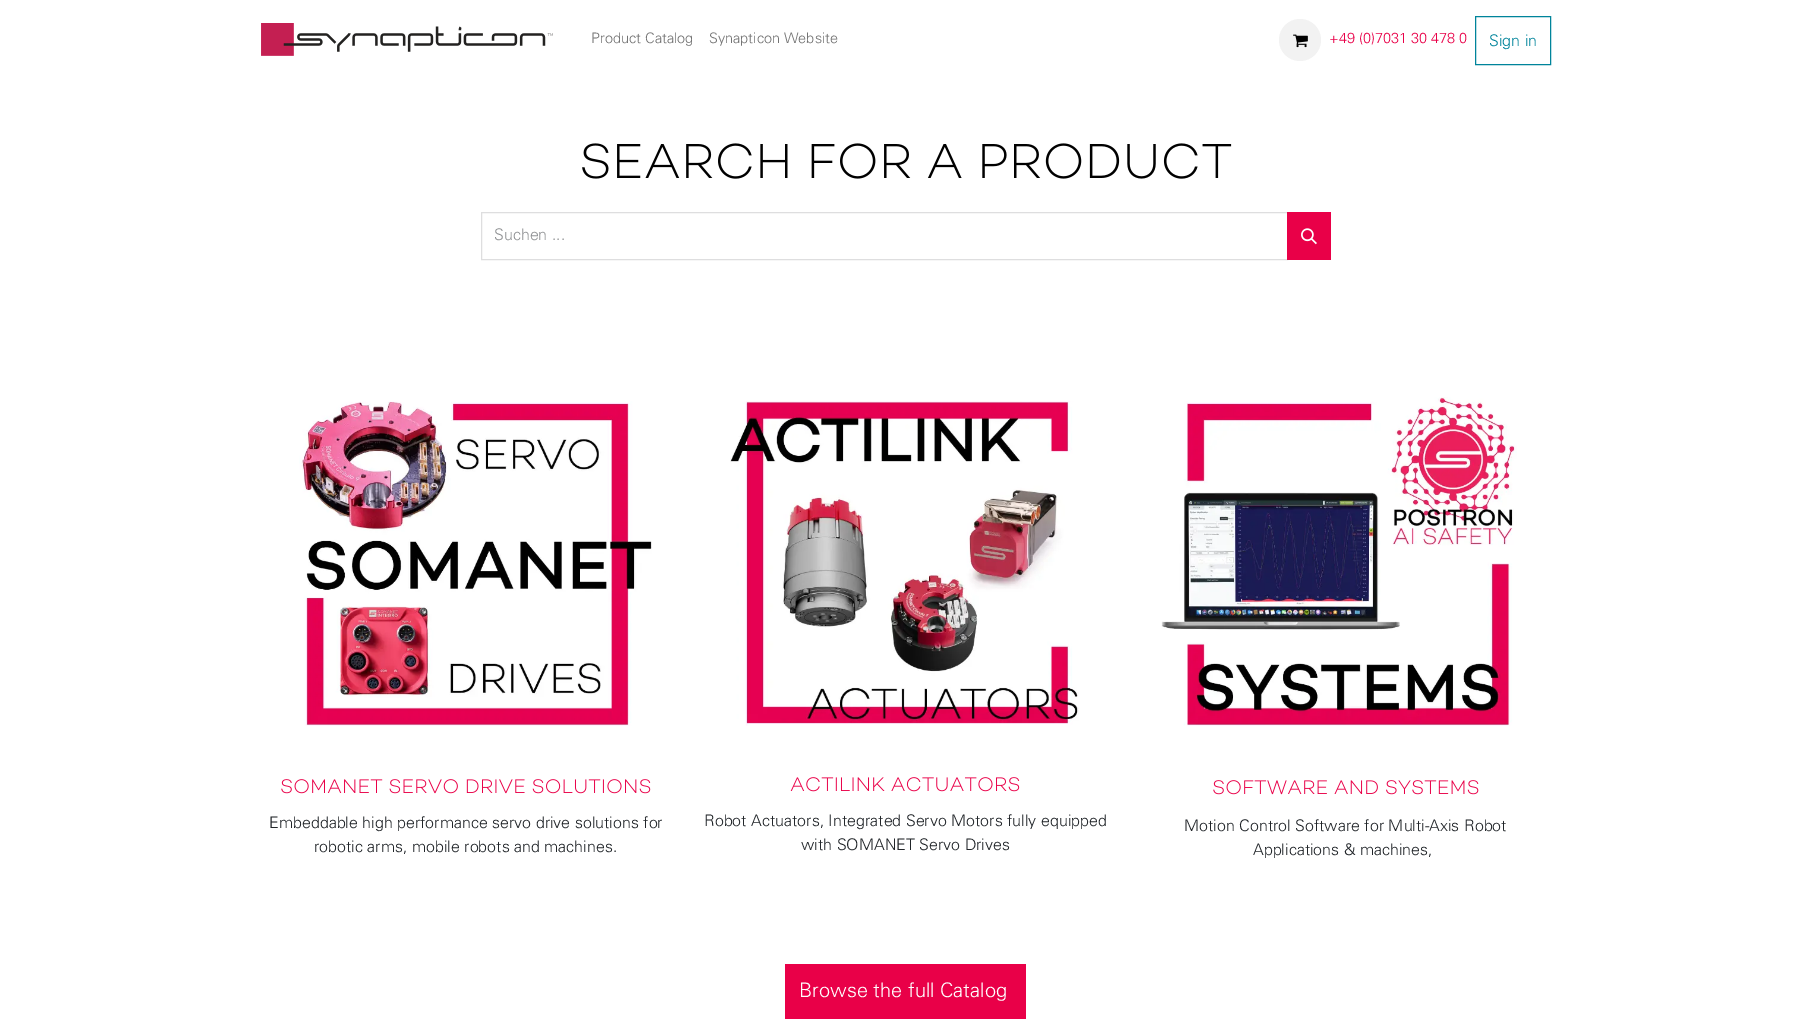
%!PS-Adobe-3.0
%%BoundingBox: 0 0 1811 1030
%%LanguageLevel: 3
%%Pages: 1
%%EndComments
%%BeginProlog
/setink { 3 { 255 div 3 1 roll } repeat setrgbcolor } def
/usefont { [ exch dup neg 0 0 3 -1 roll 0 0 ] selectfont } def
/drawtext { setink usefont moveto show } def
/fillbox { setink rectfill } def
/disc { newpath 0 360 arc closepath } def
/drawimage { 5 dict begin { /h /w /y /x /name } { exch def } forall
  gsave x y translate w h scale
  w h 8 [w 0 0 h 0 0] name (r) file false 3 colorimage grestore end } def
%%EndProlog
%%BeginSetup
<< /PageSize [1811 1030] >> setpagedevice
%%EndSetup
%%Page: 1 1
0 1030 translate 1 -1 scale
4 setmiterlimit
0 0 1811 1030 255 255 255 fillbox
(assets/img1.rgb) 261 23 292 33 drawimage
(Product Catalog) 591 43 /Univers-Light 14.5 115 115 115 drawtext
(Synapticon Website) 709 43 /Univers-Light 14.5 115 115 115 drawtext
242 242 242 setink
1300 40 21 disc fill
(assets/img2.rgb) 1293 34 15 14 drawimage
(+49 \(0\)7031 30 478 0) 1329 43 /Univers-Light 14.5 233 0 72 drawtext
0 132 155 setink
1475.5 16.5 75 48 rectstroke
(Sign in) 1489 46 /Univers-Light 16 0 132 155 drawtext
(assets/img3.rgb) 582 143 650 36 drawimage
222 222 223 setink
481.5 212.5 806 47 rectstroke
(Suchen ...) 494 240 /Univers-Light 16 144 146 148 drawtext
1287 212 44 48 233 0 72 fillbox
(assets/img4.rgb) 1301 228 16 17 drawimage
(assets/img5.rgb) 299 401 353 325 drawimage
(assets/img6.rgb) 281 779 370 15 drawimage
(Embeddable high performance servo drive solutions for) 269 828 /Univers-Light 16 33 37 41 drawtext
(robotic arms, mobile robots and machines.) 314 852 /Univers-Light 16 33 37 41 drawtext
(assets/img7.rgb) 730 401 349 325 drawimage
(assets/img8.rgb) 790 777 230 15 drawimage
(Robot Actuators, Integrated Servo Motors fully equipped) 704 826 /Univers-Light 16 33 37 41 drawtext
(with SOMANET Servo Drives) 801 850 /Univers-Light 16 33 37 41 drawtext
(assets/img9.rgb) 1161 397 356 329 drawimage
(assets/img10.rgb) 1213 780 266 15 drawimage
(Motion Control Software for Multi-Axis Robot) 1184 831 /Univers-Light 16 33 37 41 drawtext
(Applications & machines,) 1253 855 /Univers-Light 16 33 37 41 drawtext
785 964 241 55 233 0 72 fillbox
(Browse the full Catalog) 799 997 /Univers-Light 20 255 255 255 drawtext
showpage
%%EOF
